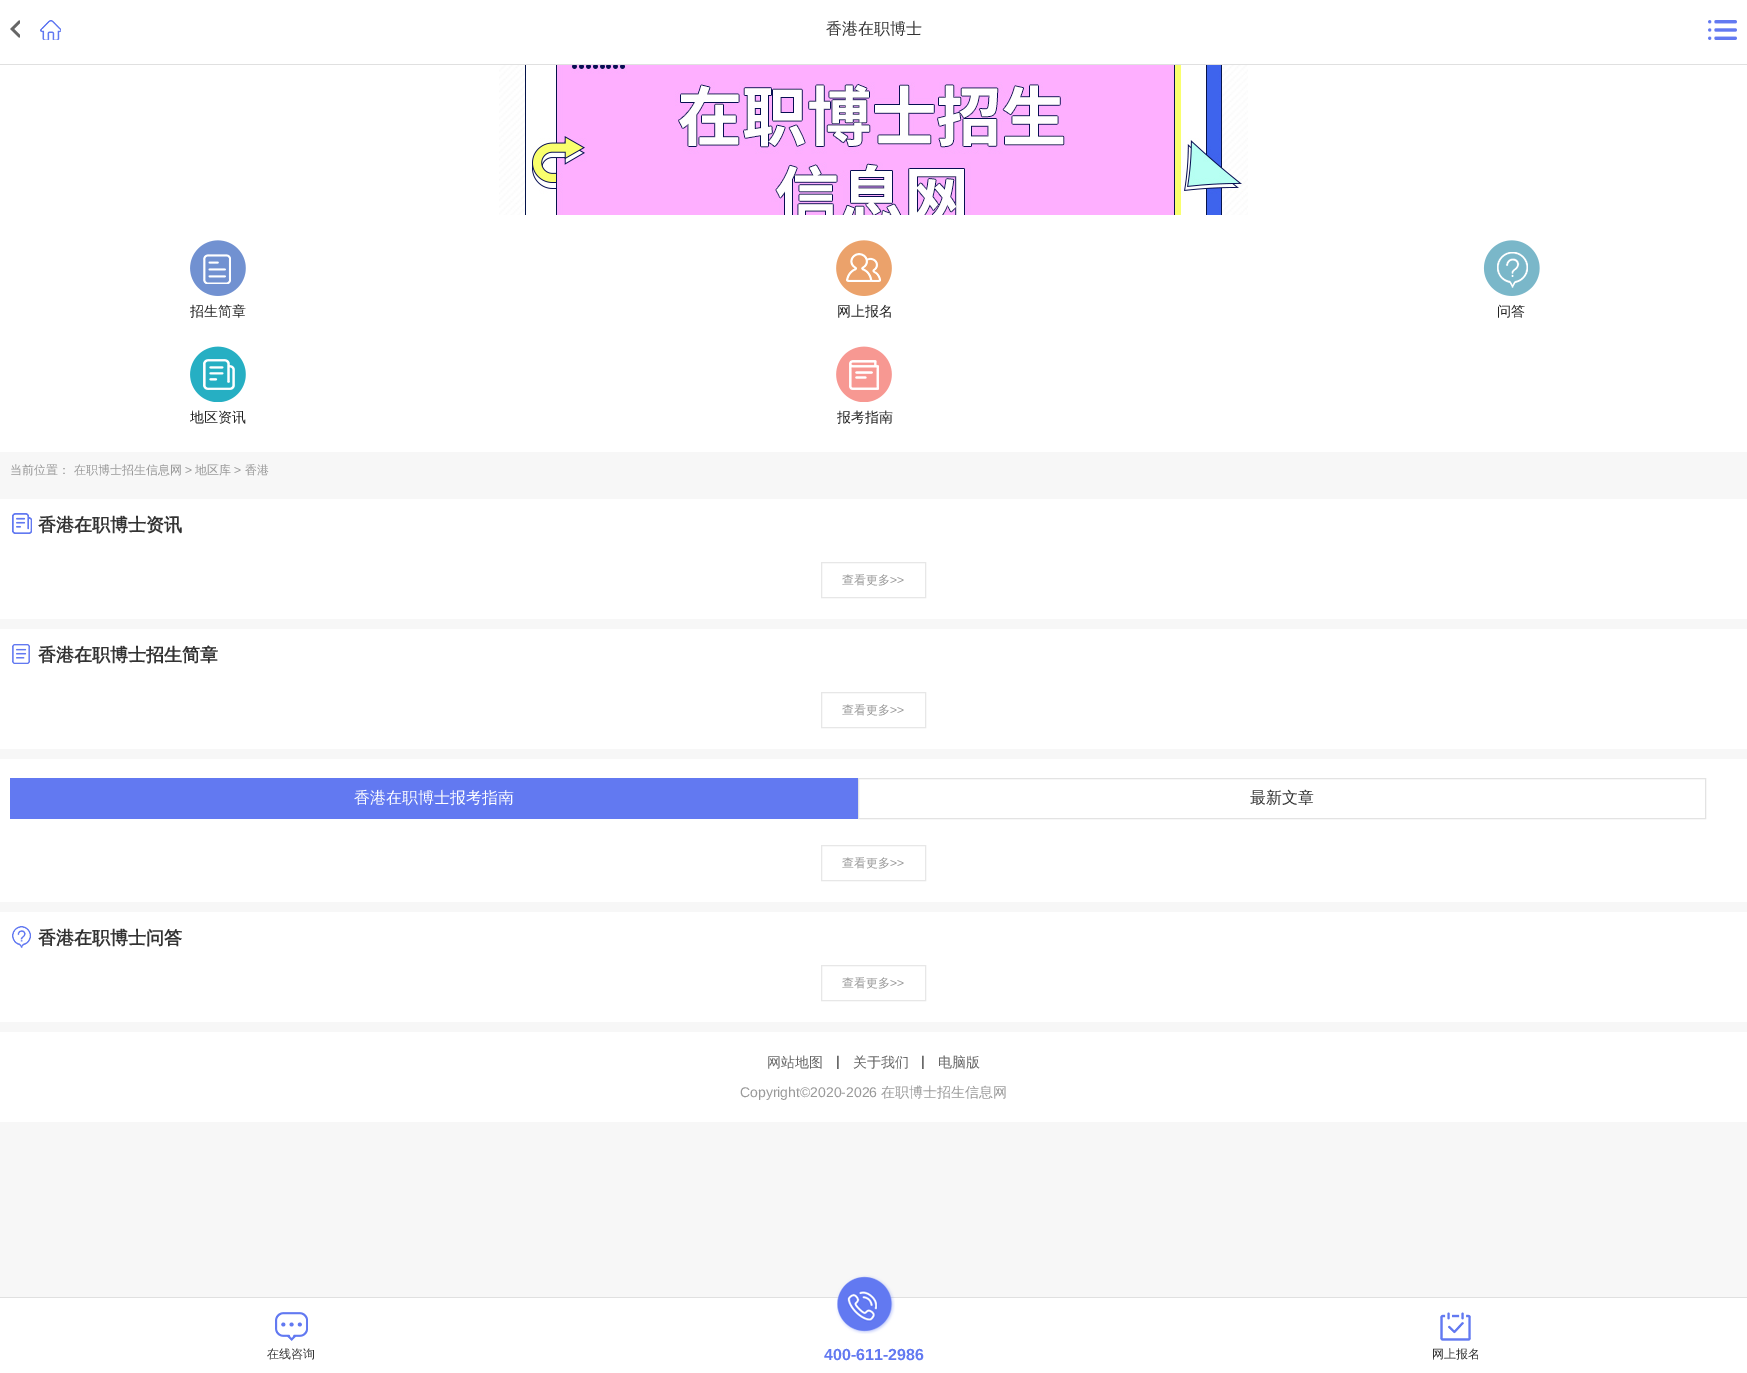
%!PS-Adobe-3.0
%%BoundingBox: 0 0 1747 1373
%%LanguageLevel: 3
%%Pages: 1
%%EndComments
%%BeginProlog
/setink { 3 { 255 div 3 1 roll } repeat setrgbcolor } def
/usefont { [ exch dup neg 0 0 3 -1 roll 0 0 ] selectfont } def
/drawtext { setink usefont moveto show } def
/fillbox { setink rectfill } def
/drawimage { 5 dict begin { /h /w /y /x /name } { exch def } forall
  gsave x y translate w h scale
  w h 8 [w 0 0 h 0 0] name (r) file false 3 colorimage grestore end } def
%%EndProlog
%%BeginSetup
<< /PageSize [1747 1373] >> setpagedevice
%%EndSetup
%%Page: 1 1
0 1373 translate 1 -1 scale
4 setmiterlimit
0 0 1747 1373 247 247 247 fillbox
0 0 1747 64 255 255 255 fillbox
0 64 1747 1 224 224 224 fillbox
(assets/img1.rgb) 10 20 10 18 drawimage
(assets/img2.rgb) 40 20 21 20 drawimage
(香港在职博士) 826 34 /WenQuanYiZenHei-Medium 16 51 51 51 drawtext
(assets/img3.rgb) 1708 20 29 20 drawimage
0 65 1747 387 255 255 255 fillbox
(assets/img4.rgb) 499 65 749 150 drawimage
(assets/img5.rgb) 190 240 56 56 drawimage
(招生简章) 190 316 /WenQuanYiZenHei-Medium 14 35 35 35 drawtext
(assets/img6.rgb) 836 240 56 56 drawimage
(网上报名) 837 316 /WenQuanYiZenHei-Medium 14 35 35 35 drawtext
(assets/img7.rgb) 1483 240 57 56 drawimage
(问答) 1497 316 /WenQuanYiZenHei-Medium 14 35 35 35 drawtext
(assets/img8.rgb) 190 346 56 56 drawimage
(地区资讯) 190 422 /WenQuanYiZenHei-Medium 14 35 35 35 drawtext
(assets/img9.rgb) 836 346 56 56 drawimage
(报考指南) 837 422 /WenQuanYiZenHei-Medium 14 35 35 35 drawtext
(当前位置： 在职博士招生信息网) 10 474 /WenQuanYiZenHei-Medium 12 153 153 153 drawtext
(>) 185 474 /LiberationSans-Regular 12 153 153 153 drawtext
(地区库) 195 474 /WenQuanYiZenHei-Medium 12 153 153 153 drawtext
(>) 234 474 /LiberationSans-Regular 12 153 153 153 drawtext
(香港) 245 474 /WenQuanYiZenHei-Medium 12 153 153 153 drawtext
0 499 1747 120 255 255 255 fillbox
(assets/img10.rgb) 12 513 20 21 drawimage
(香港在职博士资讯) 38 531 /WenQuanYiZenHei-Bold 18 51 51 51 drawtext
231 231 231 setink
821.5 562.5 104 35 rectstroke
(查看更多) 842 584 /WenQuanYiZenHei-Medium 12 153 153 153 drawtext
(>>) 890 584 /LiberationSans-Regular 12 153 153 153 drawtext
0 629 1747 120 255 255 255 fillbox
(assets/img11.rgb) 12 644 18 20 drawimage
(香港在职博士招生简章) 38 661 /WenQuanYiZenHei-Bold 18 51 51 51 drawtext
231 231 231 setink
821.5 692.5 104 35 rectstroke
(查看更多) 842 714 /WenQuanYiZenHei-Medium 12 153 153 153 drawtext
(>>) 890 714 /LiberationSans-Regular 12 153 153 153 drawtext
0 759 1747 143 255 255 255 fillbox
10 778 848 41 98 121 241 fillbox
(香港在职博士报考指南) 354 803 /WenQuanYiZenHei-Medium 16 255 255 255 drawtext
227 227 227 setink
858.5 778.5 847 40 rectstroke
(最新文章) 1250 803 /WenQuanYiZenHei-Medium 16 51 51 51 drawtext
231 231 231 setink
821.5 845.5 104 35 rectstroke
(查看更多) 842 867 /WenQuanYiZenHei-Medium 12 153 153 153 drawtext
(>>) 890 867 /LiberationSans-Regular 12 153 153 153 drawtext
0 912 1747 110 255 255 255 fillbox
(assets/img12.rgb) 12 926 19 22 drawimage
(香港在职博士问答) 38 944 /WenQuanYiZenHei-Bold 18 51 51 51 drawtext
231 231 231 setink
821.5 965.5 104 35 rectstroke
(查看更多) 842 987 /WenQuanYiZenHei-Medium 12 153 153 153 drawtext
(>>) 890 987 /LiberationSans-Regular 12 153 153 153 drawtext
0 1032 1747 90 255 255 255 fillbox
(网站地图) 767 1067 /WenQuanYiZenHei-Medium 14 102 102 102 drawtext
(|) 836 1066 /LiberationSans-Regular 14 51 51 51 drawtext
(关于我们) 853 1067 /WenQuanYiZenHei-Medium 14 102 102 102 drawtext
(|) 921 1066 /LiberationSans-Regular 14 51 51 51 drawtext
(电脑版) 938 1067 /WenQuanYiZenHei-Medium 14 102 102 102 drawtext
(Copyright©2020-2026) 740 1097 /LiberationSans-Regular 14 153 153 153 drawtext
(在职博士招生信息网) 881 1097 /WenQuanYiZenHei-Medium 14 153 153 153 drawtext
0 1298 1747 75 255 255 255 fillbox
0 1297 1747 1 224 224 224 fillbox
(assets/img13.rgb) 275 1312 33 29 drawimage
(在线咨询) 267 1358 /WenQuanYiZenHei-Medium 12 51 51 51 drawtext
(assets/img14.rgb) 836 1275 59 59 drawimage
(400-611-2986) 824 1360 /LiberationSans-Bold 16 98 121 241 drawtext
(assets/img15.rgb) 1440 1312 31 29 drawimage
(网上报名) 1432 1358 /WenQuanYiZenHei-Medium 12 51 51 51 drawtext
showpage
%%EOF
